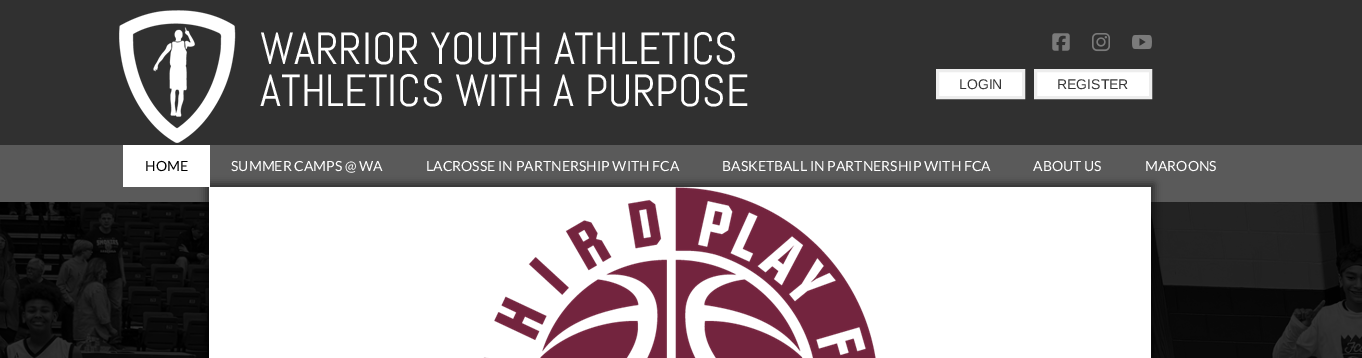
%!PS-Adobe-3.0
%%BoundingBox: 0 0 1362 358
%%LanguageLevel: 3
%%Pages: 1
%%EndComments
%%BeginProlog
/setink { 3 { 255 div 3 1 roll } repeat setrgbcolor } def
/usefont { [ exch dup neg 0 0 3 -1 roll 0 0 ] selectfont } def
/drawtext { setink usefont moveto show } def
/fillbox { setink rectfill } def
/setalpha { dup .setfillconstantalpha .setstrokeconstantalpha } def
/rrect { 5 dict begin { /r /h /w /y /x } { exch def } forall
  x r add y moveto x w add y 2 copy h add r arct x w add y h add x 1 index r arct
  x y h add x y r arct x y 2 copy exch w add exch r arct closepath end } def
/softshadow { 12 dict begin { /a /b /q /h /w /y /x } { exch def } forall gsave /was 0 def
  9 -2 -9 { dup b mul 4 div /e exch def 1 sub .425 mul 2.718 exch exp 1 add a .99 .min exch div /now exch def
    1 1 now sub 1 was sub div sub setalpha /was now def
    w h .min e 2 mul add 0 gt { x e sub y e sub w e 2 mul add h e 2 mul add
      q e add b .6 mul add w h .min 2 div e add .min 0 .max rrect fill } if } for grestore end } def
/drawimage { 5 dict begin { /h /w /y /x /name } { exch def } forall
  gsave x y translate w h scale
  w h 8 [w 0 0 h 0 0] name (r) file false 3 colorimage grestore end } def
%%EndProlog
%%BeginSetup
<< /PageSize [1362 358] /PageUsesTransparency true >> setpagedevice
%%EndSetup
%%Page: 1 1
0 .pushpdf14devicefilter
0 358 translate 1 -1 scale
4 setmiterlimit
0 0 1362 358 48 48 48 fillbox
(assets/img1.rgb) 119 10 117 133 drawimage
(WARRIOR YOUTH ATHLETICS) 260 64 /Abel-Regular 45 255 255 255 drawtext
(ATHLETICS WITH A PURPOSE) 260 106 /Abel-Regular 45 255 255 255 drawtext
(assets/img2.rgb) 1052 33 18 18 drawimage
(assets/img3.rgb) 1092 33 18 19 drawimage
(assets/img4.rgb) 1132 34 20 16 drawimage
937.5 70.5 moveto 1023.5 70.5 lineto 1023.5 97.5 lineto 937.5 97.5 lineto closepath gsave fill grestore
237 237 237 setink
3 setlinewidth
stroke
(LOGIN) 959 89 /LiberationSans-Regular 14 54 54 54 drawtext
255 255 255 setink
1035.5 70.5 moveto 1150.5 70.5 lineto 1150.5 97.5 lineto 1035.5 97.5 lineto closepath gsave fill grestore
237 237 237 setink
stroke
(REGISTER) 1057 89 /LiberationSans-Regular 14 54 54 54 drawtext
0 145 1362 57 90 90 90 fillbox
(assets/img5.rgb) 0 202 209 156 drawimage
(assets/img7.rgb) 1151 202 211 156 drawimage
0 0 0 setink
206 184 948 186 0 4 0.5 softshadow
123 145 87 42 255 255 255 fillbox
(HOME) 145 171 /Lato-Regular 14 0 0 0 drawtext
(SUMMER CAMPS @ WA) 231 171 /Lato-Regular 14 255 255 255 drawtext
(LACROSSE IN PARTNERSHIP WITH FCA) 426 171 /Lato-Regular 14 255 255 255 drawtext
(BASKETBALL IN PARTNERSHIP WITH FCA) 722 171 /Lato-Regular 14 255 255 255 drawtext
(ABOUT US) 1033 171 /Lato-Regular 14 255 255 255 drawtext
(MAROONS) 1145 171 /Lato-Regular 14 255 255 255 drawtext
209 187 942 171 255 255 255 fillbox
(assets/img6.rgb) 483 187 393 171 drawimage
.poppdf14devicefilter showpage
%%EOF
